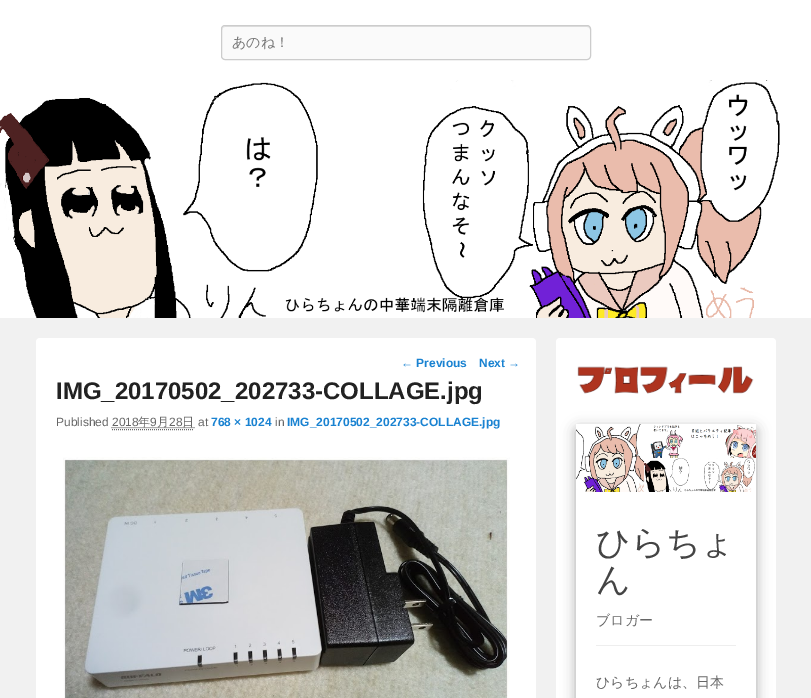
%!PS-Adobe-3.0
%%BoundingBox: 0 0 811 698
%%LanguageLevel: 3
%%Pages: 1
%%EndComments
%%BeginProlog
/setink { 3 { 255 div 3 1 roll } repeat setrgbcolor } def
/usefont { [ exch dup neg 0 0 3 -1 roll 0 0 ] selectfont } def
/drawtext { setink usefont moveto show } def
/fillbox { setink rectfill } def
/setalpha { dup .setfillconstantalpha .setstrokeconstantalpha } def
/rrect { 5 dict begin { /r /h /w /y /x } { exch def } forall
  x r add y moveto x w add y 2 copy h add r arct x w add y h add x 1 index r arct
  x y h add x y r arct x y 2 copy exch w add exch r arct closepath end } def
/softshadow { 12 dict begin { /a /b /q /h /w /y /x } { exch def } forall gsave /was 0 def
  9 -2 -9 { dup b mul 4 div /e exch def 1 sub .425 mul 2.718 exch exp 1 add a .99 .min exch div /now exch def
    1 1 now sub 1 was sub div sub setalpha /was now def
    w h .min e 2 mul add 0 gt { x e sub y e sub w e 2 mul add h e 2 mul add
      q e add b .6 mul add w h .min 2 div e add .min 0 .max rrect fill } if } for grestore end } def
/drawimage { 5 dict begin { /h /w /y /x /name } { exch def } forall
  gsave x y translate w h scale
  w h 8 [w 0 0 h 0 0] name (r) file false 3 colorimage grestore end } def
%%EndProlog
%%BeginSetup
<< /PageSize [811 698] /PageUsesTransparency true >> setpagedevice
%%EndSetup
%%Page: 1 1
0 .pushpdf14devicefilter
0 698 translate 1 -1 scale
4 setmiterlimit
0 0 811 698 241 241 241 fillbox
0 0 811 80 255 255 255 fillbox
250 250 250 setink
221 25 370 35 4 rrect fill
225 225 225 setink
225 27 moveto 587 27 lineto 589 27 590 28 590 30 curveto 590 28 589 26 587 26 curveto 225 26 lineto 223 27 lineto 222 30 lineto 222 28 223 27 225 27 curveto closepath fill
204 204 204 setink
221.5 25.5 369 34 3.5 rrect stroke
(あのね！) 232 47 /WenQuanYiZenHei-Medium 14 117 117 117 drawtext
780 80 31 238 255 255 255 fillbox
(assets/img1.rgb) 0 80 780 238 drawimage
36 338 500 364 4 rrect fill
(← Previous) 401 367 /LiberationSans-Bold 12 25 130 209 drawtext
(Next →) 479 367 /LiberationSans-Bold 12 25 130 209 drawtext
(IMG_20170502_202733-COLLAGE.jpg) 56 399 /LiberationSans-Bold 24 34 34 34 drawtext
(Published 2018) 56 426 /LiberationSans-Regular 12 102 102 102 drawtext
[1 1] 0 setdash
111.5 427.5 moveto 194.5 427.5 lineto stroke
(年) 138 426 /WenQuanYiZenHei-Medium 12 102 102 102 drawtext
112 429.5 moveto 194 429.5 lineto stroke
(9) 150 426 /LiberationSans-Regular 12 102 102 102 drawtext
(月) 157 426 /WenQuanYiZenHei-Medium 12 102 102 102 drawtext
(28) 169 426 /LiberationSans-Regular 12 102 102 102 drawtext
(日) 182 426 /WenQuanYiZenHei-Medium 12 102 102 102 drawtext
(at) 198 426 /LiberationSans-Regular 12 102 102 102 drawtext
(768 × 1024) 211 426 /LiberationSans-Bold 12 25 130 209 drawtext
(in) 275 426 /LiberationSans-Regular 12 102 102 102 drawtext
(IMG_20170502_202733-COLLAGE.jpg) 287 426 /LiberationSans-Bold 12 25 130 209 drawtext
(assets/img2.rgb) 63 457 447 241 drawimage
255 255 255 setink
556 338 220 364 4 rrect fill
(assets/img3.rgb) 577 366 177 28 drawimage
0 0 0 setink
576 428 180 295 2 7.5 0.15 softshadow
576 429 180 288 2 5.5 0.2 softshadow
576 492 180 206 255 255 255 fillbox
(assets/img4.rgb) 576 424 180 68 drawimage
(ひらちょ) 596 554 /WenQuanYiZenHei-Medium 34 68 68 68 drawtext
(ん) 596 591 /WenQuanYiZenHei-Medium 34 68 68 68 drawtext
(ブロガー) 596 625 /WenQuanYiZenHei-Medium 14 102 102 102 drawtext
596 645 140 1 238 238 238 fillbox
(ひらちょんは、日本) 596 687 /WenQuanYiZenHei-Medium 14 102 102 102 drawtext
.poppdf14devicefilter showpage
%%EOF
